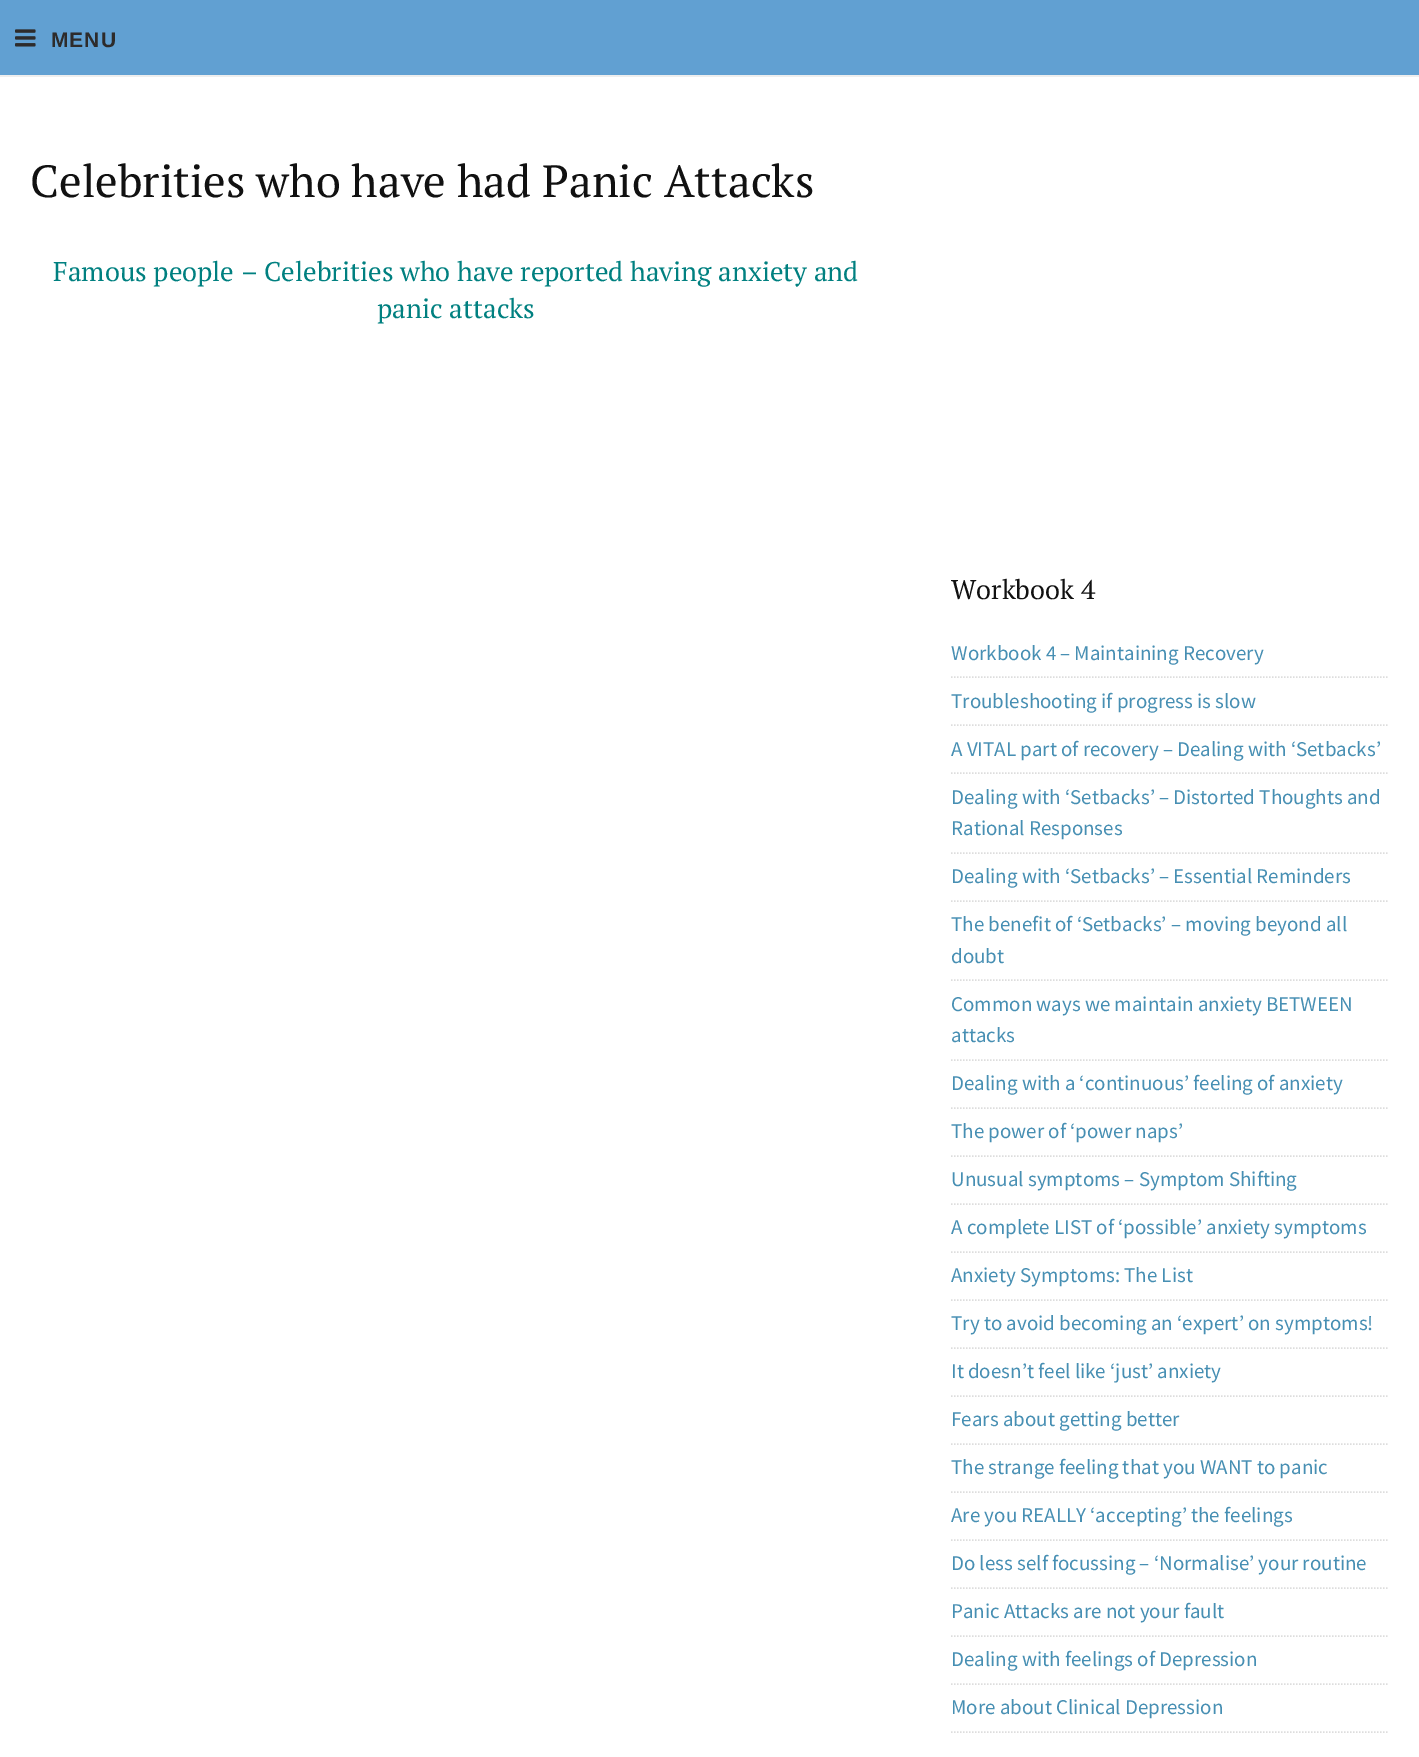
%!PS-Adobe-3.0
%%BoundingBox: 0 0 1419 1757
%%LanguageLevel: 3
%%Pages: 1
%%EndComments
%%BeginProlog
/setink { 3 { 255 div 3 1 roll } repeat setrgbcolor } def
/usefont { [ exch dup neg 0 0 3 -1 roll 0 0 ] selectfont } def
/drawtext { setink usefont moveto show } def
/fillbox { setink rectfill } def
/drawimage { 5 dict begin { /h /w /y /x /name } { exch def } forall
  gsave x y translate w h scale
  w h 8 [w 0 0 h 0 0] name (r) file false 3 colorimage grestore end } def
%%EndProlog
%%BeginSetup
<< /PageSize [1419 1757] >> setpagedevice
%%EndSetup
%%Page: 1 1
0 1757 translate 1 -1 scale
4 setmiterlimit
0 0 1419 1757 255 255 255 fillbox
0 0 1419 75 97 160 210 fillbox
0 75 1419 2 238 238 238 fillbox
(assets/img1.rgb) 15 29 21 18 drawimage
/LiberationSans-Bold 21 usefont
45 43 43 setink
51 47 moveto 1 0 (MENU) ashow
(Celebrities who have had Panic Attacks) 30 197 /PTSerif-Regular 45 17 17 17 drawtext
(Famous people – Celebrities who have reported having anxiety and) 53 281 /PTSerif-Regular 27 0 128 128 drawtext
(panic attacks) 377 318 /PTSerif-Regular 27 0 128 128 drawtext
(Workbook 4) 951 599 /PTSerif-Regular 27 17 17 17 drawtext
221 221 221 setink
1.5 setlinewidth
[1.5 1.5] 0 setdash
951 677 moveto 1389 677 lineto stroke
(Workbook 4 – Maintaining Recovery) 951 660 /SourceSansPro-Regular 21 71 143 179 drawtext
221 221 221 setink
951 725 moveto 1389 725 lineto stroke
(Troubleshooting if progress is slow) 951 708 /SourceSansPro-Regular 21 71 143 179 drawtext
221 221 221 setink
951 773 moveto 1389 773 lineto stroke
(A VITAL part of recovery – Dealing with ‘Setbacks’) 951 756 /SourceSansPro-Regular 21 71 143 179 drawtext
221 221 221 setink
951 853 moveto 1389 853 lineto stroke
(Dealing with ‘Setbacks’ – Distorted Thoughts and) 951 804 /SourceSansPro-Regular 21 71 143 179 drawtext
(Rational Responses) 951 835 /SourceSansPro-Regular 21 71 143 179 drawtext
221 221 221 setink
951 901 moveto 1389 901 lineto stroke
(Dealing with ‘Setbacks’ – Essential Reminders) 951 883 /SourceSansPro-Regular 21 71 143 179 drawtext
221 221 221 setink
951 980 moveto 1389 980 lineto stroke
(The benefit of ‘Setbacks’ – moving beyond all) 951 931 /SourceSansPro-Regular 21 71 143 179 drawtext
(doubt) 951 963 /SourceSansPro-Regular 21 71 143 179 drawtext
221 221 221 setink
951 1060 moveto 1389 1060 lineto stroke
(Common ways we maintain anxiety BETWEEN) 951 1011 /SourceSansPro-Regular 21 71 143 179 drawtext
(attacks) 951 1042 /SourceSansPro-Regular 21 71 143 179 drawtext
221 221 221 setink
951 1108 moveto 1389 1108 lineto stroke
(Dealing with a ‘continuous’ feeling of anxiety) 951 1090 /SourceSansPro-Regular 21 71 143 179 drawtext
221 221 221 setink
951 1156 moveto 1389 1156 lineto stroke
(The power of ‘power naps’) 951 1138 /SourceSansPro-Regular 21 71 143 179 drawtext
221 221 221 setink
951 1204 moveto 1389 1204 lineto stroke
(Unusual symptoms – Symptom Shifting) 951 1186 /SourceSansPro-Regular 21 71 143 179 drawtext
221 221 221 setink
951 1252 moveto 1389 1252 lineto stroke
(A complete LIST of ‘possible’ anxiety symptoms) 951 1234 /SourceSansPro-Regular 21 71 143 179 drawtext
221 221 221 setink
951 1300 moveto 1389 1300 lineto stroke
(Anxiety Symptoms: The List) 951 1282 /SourceSansPro-Regular 21 71 143 179 drawtext
221 221 221 setink
951 1348 moveto 1389 1348 lineto stroke
(Try to avoid becoming an ‘expert’ on symptoms!) 951 1330 /SourceSansPro-Regular 21 71 143 179 drawtext
221 221 221 setink
951 1396 moveto 1389 1396 lineto stroke
(It doesn’t feel like ‘just’ anxiety) 951 1378 /SourceSansPro-Regular 21 71 143 179 drawtext
221 221 221 setink
951 1444 moveto 1389 1444 lineto stroke
(Fears about getting better) 951 1426 /SourceSansPro-Regular 21 71 143 179 drawtext
221 221 221 setink
951 1492 moveto 1389 1492 lineto stroke
(The strange feeling that you WANT to panic) 951 1474 /SourceSansPro-Regular 21 71 143 179 drawtext
221 221 221 setink
951 1540 moveto 1389 1540 lineto stroke
(Are you REALLY ‘accepting’ the feelings) 951 1522 /SourceSansPro-Regular 21 71 143 179 drawtext
221 221 221 setink
951 1588 moveto 1389 1588 lineto stroke
(Do less self focussing – ‘Normalise’ your routine) 951 1570 /SourceSansPro-Regular 21 71 143 179 drawtext
221 221 221 setink
951 1636 moveto 1389 1636 lineto stroke
(Panic Attacks are not your fault) 951 1618 /SourceSansPro-Regular 21 71 143 179 drawtext
221 221 221 setink
951 1684 moveto 1389 1684 lineto stroke
(Dealing with feelings of Depression) 951 1666 /SourceSansPro-Regular 21 71 143 179 drawtext
221 221 221 setink
951 1732 moveto 1389 1732 lineto stroke
(More about Clinical Depression) 951 1714 /SourceSansPro-Regular 21 71 143 179 drawtext
showpage
%%EOF
